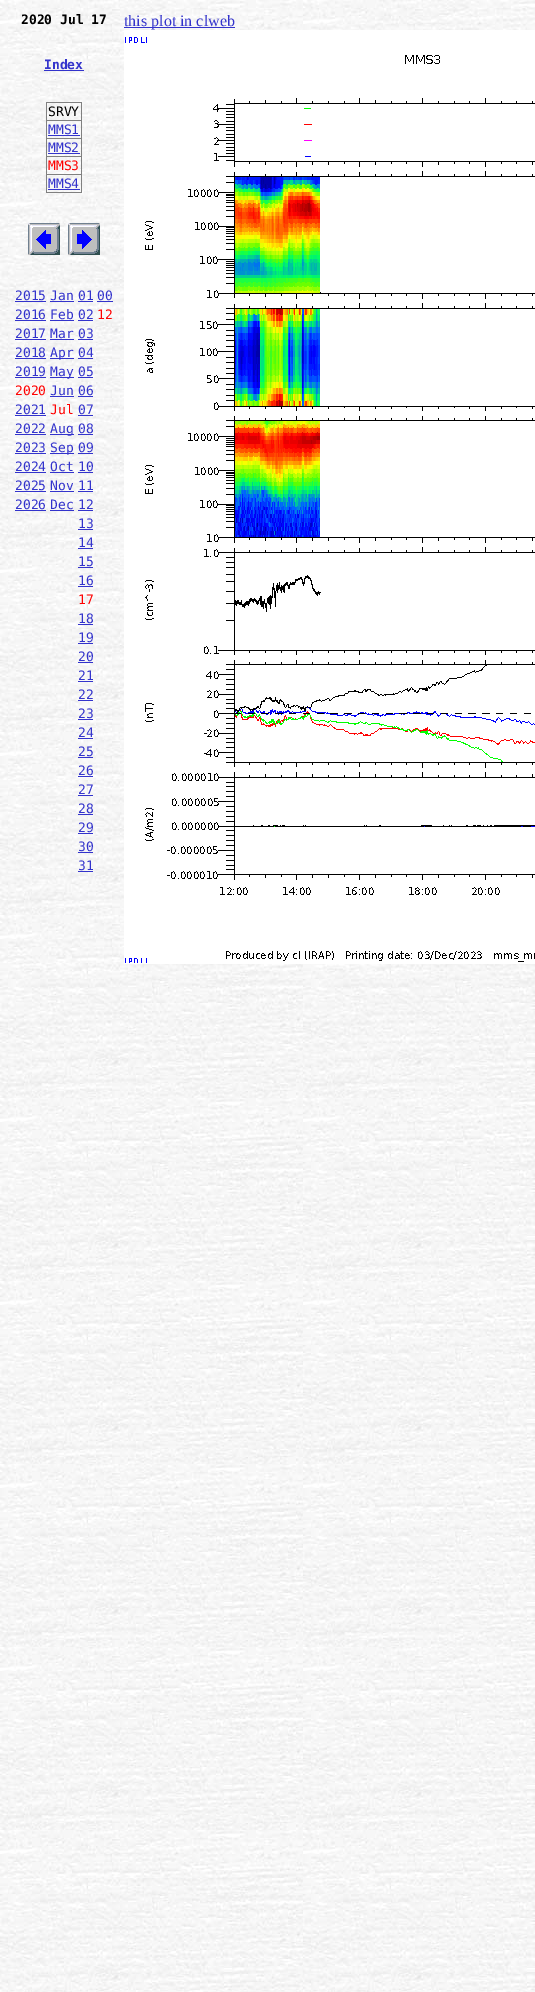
%!PS-Adobe-3.0
%%BoundingBox: 0 0 535 1992
%%LanguageLevel: 3
%%Pages: 1
%%EndComments
%%BeginProlog
/setink { 3 { 255 div 3 1 roll } repeat setrgbcolor } def
/usefont { [ exch dup neg 0 0 3 -1 roll 0 0 ] selectfont } def
/drawtext { setink usefont moveto show } def
/fillbox { setink rectfill } def
/drawimage { 5 dict begin { /h /w /y /x /name } { exch def } forall
  gsave x y translate w h scale
  w h 8 [w 0 0 h 0 0] name (r) file false 3 colorimage grestore end } def
%%EndProlog
%%BeginSetup
<< /PageSize [535 1992] >> setpagedevice
%%EndSetup
%%Page: 1 1
0 1992 translate 1 -1 scale
4 setmiterlimit
0 0 535 1992 255 255 255 fillbox
(assets/img1.rgb) 0 0 535 1992 drawimage
(2020 Jul 17) 21 24 /DejaVuSansMono-Bold 13 0 0 0 drawtext
(Index) 44 69 /DejaVuSansMono-Bold 13 51 51 204 drawtext
44 70 40 1 51 51 204 fillbox
46 102 36 1 128 128 128 fillbox
81 102 1 91 128 128 128 fillbox
46 192 36 1 128 128 128 fillbox
46 102 1 91 128 128 128 fillbox
(SRVY) 48 116 /DejaVuSansMono-Regular 13 0 0 0 drawtext
46 120 36 1 128 128 128 fillbox
(MMS1) 48 134 /DejaVuSansMono-Regular 13 51 51 204 drawtext
48 135 32 1 51 51 204 fillbox
46 138 36 1 128 128 128 fillbox
(MMS2) 48 152 /DejaVuSansMono-Regular 13 51 51 204 drawtext
48 153 32 1 51 51 204 fillbox
46 156 36 1 128 128 128 fillbox
(MMS3) 48 170 /DejaVuSansMono-Regular 13 255 0 0 drawtext
46 174 36 1 128 128 128 fillbox
(MMS4) 48 188 /DejaVuSansMono-Regular 13 51 51 204 drawtext
48 189 32 1 51 51 204 fillbox
(assets/img2.rgb) 28 223 32 32 drawimage
(assets/img3.rgb) 68 223 32 32 drawimage
(2015) 15 300 /DejaVuSansMono-Regular 13 51 51 204 drawtext
15 301 31 1 51 51 204 fillbox
(Jan) 50 300 /DejaVuSansMono-Regular 13 51 51 204 drawtext
50 301 24 1 51 51 204 fillbox
(01) 78 300 /DejaVuSansMono-Regular 13 51 51 204 drawtext
78 301 15 1 51 51 204 fillbox
(00) 97 300 /DejaVuSansMono-Regular 13 51 51 204 drawtext
97 301 16 1 51 51 204 fillbox
(2016) 15 319 /DejaVuSansMono-Regular 13 51 51 204 drawtext
15 320 31 1 51 51 204 fillbox
(Feb) 50 319 /DejaVuSansMono-Regular 13 51 51 204 drawtext
50 320 24 1 51 51 204 fillbox
(02) 78 319 /DejaVuSansMono-Regular 13 51 51 204 drawtext
78 320 15 1 51 51 204 fillbox
(12) 97 319 /DejaVuSansMono-Regular 13 255 0 0 drawtext
(2017) 15 338 /DejaVuSansMono-Regular 13 51 51 204 drawtext
15 339 31 1 51 51 204 fillbox
(Mar) 50 338 /DejaVuSansMono-Regular 13 51 51 204 drawtext
50 339 24 1 51 51 204 fillbox
(03) 78 338 /DejaVuSansMono-Regular 13 51 51 204 drawtext
78 339 15 1 51 51 204 fillbox
(2018) 15 357 /DejaVuSansMono-Regular 13 51 51 204 drawtext
15 358 31 1 51 51 204 fillbox
50 358 24 1 51 51 204 fillbox
(Apr) 50 357 /DejaVuSansMono-Regular 13 51 51 204 drawtext
(04) 78 357 /DejaVuSansMono-Regular 13 51 51 204 drawtext
78 358 15 1 51 51 204 fillbox
(2019) 15 376 /DejaVuSansMono-Regular 13 51 51 204 drawtext
15 377 31 1 51 51 204 fillbox
50 377 24 1 51 51 204 fillbox
(May) 50 376 /DejaVuSansMono-Regular 13 51 51 204 drawtext
(05) 78 376 /DejaVuSansMono-Regular 13 51 51 204 drawtext
78 377 15 1 51 51 204 fillbox
(2020) 15 395 /DejaVuSansMono-Regular 13 255 0 0 drawtext
(Jun) 50 395 /DejaVuSansMono-Regular 13 51 51 204 drawtext
50 396 24 1 51 51 204 fillbox
(06) 78 395 /DejaVuSansMono-Regular 13 51 51 204 drawtext
78 396 15 1 51 51 204 fillbox
(2021) 15 414 /DejaVuSansMono-Regular 13 51 51 204 drawtext
15 415 31 1 51 51 204 fillbox
(Jul) 50 414 /DejaVuSansMono-Regular 13 255 0 0 drawtext
(07) 78 414 /DejaVuSansMono-Regular 13 51 51 204 drawtext
78 415 15 1 51 51 204 fillbox
(2022) 15 433 /DejaVuSansMono-Regular 13 51 51 204 drawtext
15 434 31 1 51 51 204 fillbox
50 434 24 1 51 51 204 fillbox
(Aug) 50 433 /DejaVuSansMono-Regular 13 51 51 204 drawtext
(08) 78 433 /DejaVuSansMono-Regular 13 51 51 204 drawtext
78 434 15 1 51 51 204 fillbox
(2023) 15 452 /DejaVuSansMono-Regular 13 51 51 204 drawtext
15 453 31 1 51 51 204 fillbox
50 453 24 1 51 51 204 fillbox
(Sep) 50 452 /DejaVuSansMono-Regular 13 51 51 204 drawtext
(09) 78 452 /DejaVuSansMono-Regular 13 51 51 204 drawtext
78 453 15 1 51 51 204 fillbox
(2024) 15 471 /DejaVuSansMono-Regular 13 51 51 204 drawtext
15 472 31 1 51 51 204 fillbox
(Oct) 50 471 /DejaVuSansMono-Regular 13 51 51 204 drawtext
50 472 24 1 51 51 204 fillbox
(10) 78 471 /DejaVuSansMono-Regular 13 51 51 204 drawtext
78 472 15 1 51 51 204 fillbox
(2025) 15 490 /DejaVuSansMono-Regular 13 51 51 204 drawtext
15 491 31 1 51 51 204 fillbox
(Nov) 50 490 /DejaVuSansMono-Regular 13 51 51 204 drawtext
50 491 24 1 51 51 204 fillbox
(11) 78 490 /DejaVuSansMono-Regular 13 51 51 204 drawtext
78 491 15 1 51 51 204 fillbox
(2026) 15 509 /DejaVuSansMono-Regular 13 51 51 204 drawtext
15 510 31 1 51 51 204 fillbox
(Dec) 50 509 /DejaVuSansMono-Regular 13 51 51 204 drawtext
50 510 24 1 51 51 204 fillbox
(12) 78 509 /DejaVuSansMono-Regular 13 51 51 204 drawtext
78 510 15 1 51 51 204 fillbox
(13) 78 528 /DejaVuSansMono-Regular 13 51 51 204 drawtext
78 529 15 1 51 51 204 fillbox
(14) 78 547 /DejaVuSansMono-Regular 13 51 51 204 drawtext
78 548 15 1 51 51 204 fillbox
(15) 78 566 /DejaVuSansMono-Regular 13 51 51 204 drawtext
78 567 15 1 51 51 204 fillbox
(16) 78 585 /DejaVuSansMono-Regular 13 51 51 204 drawtext
78 586 15 1 51 51 204 fillbox
(17) 78 604 /DejaVuSansMono-Regular 13 255 0 0 drawtext
(18) 78 623 /DejaVuSansMono-Regular 13 51 51 204 drawtext
78 624 15 1 51 51 204 fillbox
(19) 78 642 /DejaVuSansMono-Regular 13 51 51 204 drawtext
78 643 15 1 51 51 204 fillbox
(20) 78 661 /DejaVuSansMono-Regular 13 51 51 204 drawtext
78 662 15 1 51 51 204 fillbox
(21) 78 680 /DejaVuSansMono-Regular 13 51 51 204 drawtext
78 681 15 1 51 51 204 fillbox
(22) 78 699 /DejaVuSansMono-Regular 13 51 51 204 drawtext
78 700 15 1 51 51 204 fillbox
(23) 78 718 /DejaVuSansMono-Regular 13 51 51 204 drawtext
78 719 15 1 51 51 204 fillbox
(24) 78 737 /DejaVuSansMono-Regular 13 51 51 204 drawtext
78 738 15 1 51 51 204 fillbox
(25) 78 756 /DejaVuSansMono-Regular 13 51 51 204 drawtext
78 757 15 1 51 51 204 fillbox
(26) 78 775 /DejaVuSansMono-Regular 13 51 51 204 drawtext
78 776 15 1 51 51 204 fillbox
(27) 78 794 /DejaVuSansMono-Regular 13 51 51 204 drawtext
78 795 15 1 51 51 204 fillbox
(28) 78 813 /DejaVuSansMono-Regular 13 51 51 204 drawtext
78 814 15 1 51 51 204 fillbox
(29) 78 832 /DejaVuSansMono-Regular 13 51 51 204 drawtext
78 833 15 1 51 51 204 fillbox
(30) 78 851 /DejaVuSansMono-Regular 13 51 51 204 drawtext
78 852 15 1 51 51 204 fillbox
(31) 78 870 /DejaVuSansMono-Regular 13 51 51 204 drawtext
78 871 15 1 51 51 204 fillbox
124 27 111 1 51 51 204 fillbox
(this plot in clweb) 124 26 /LiberationSerif-Regular 16 51 51 204 drawtext
(assets/img4.rgb) 124 30 411 934 drawimage
showpage
%%EOF
